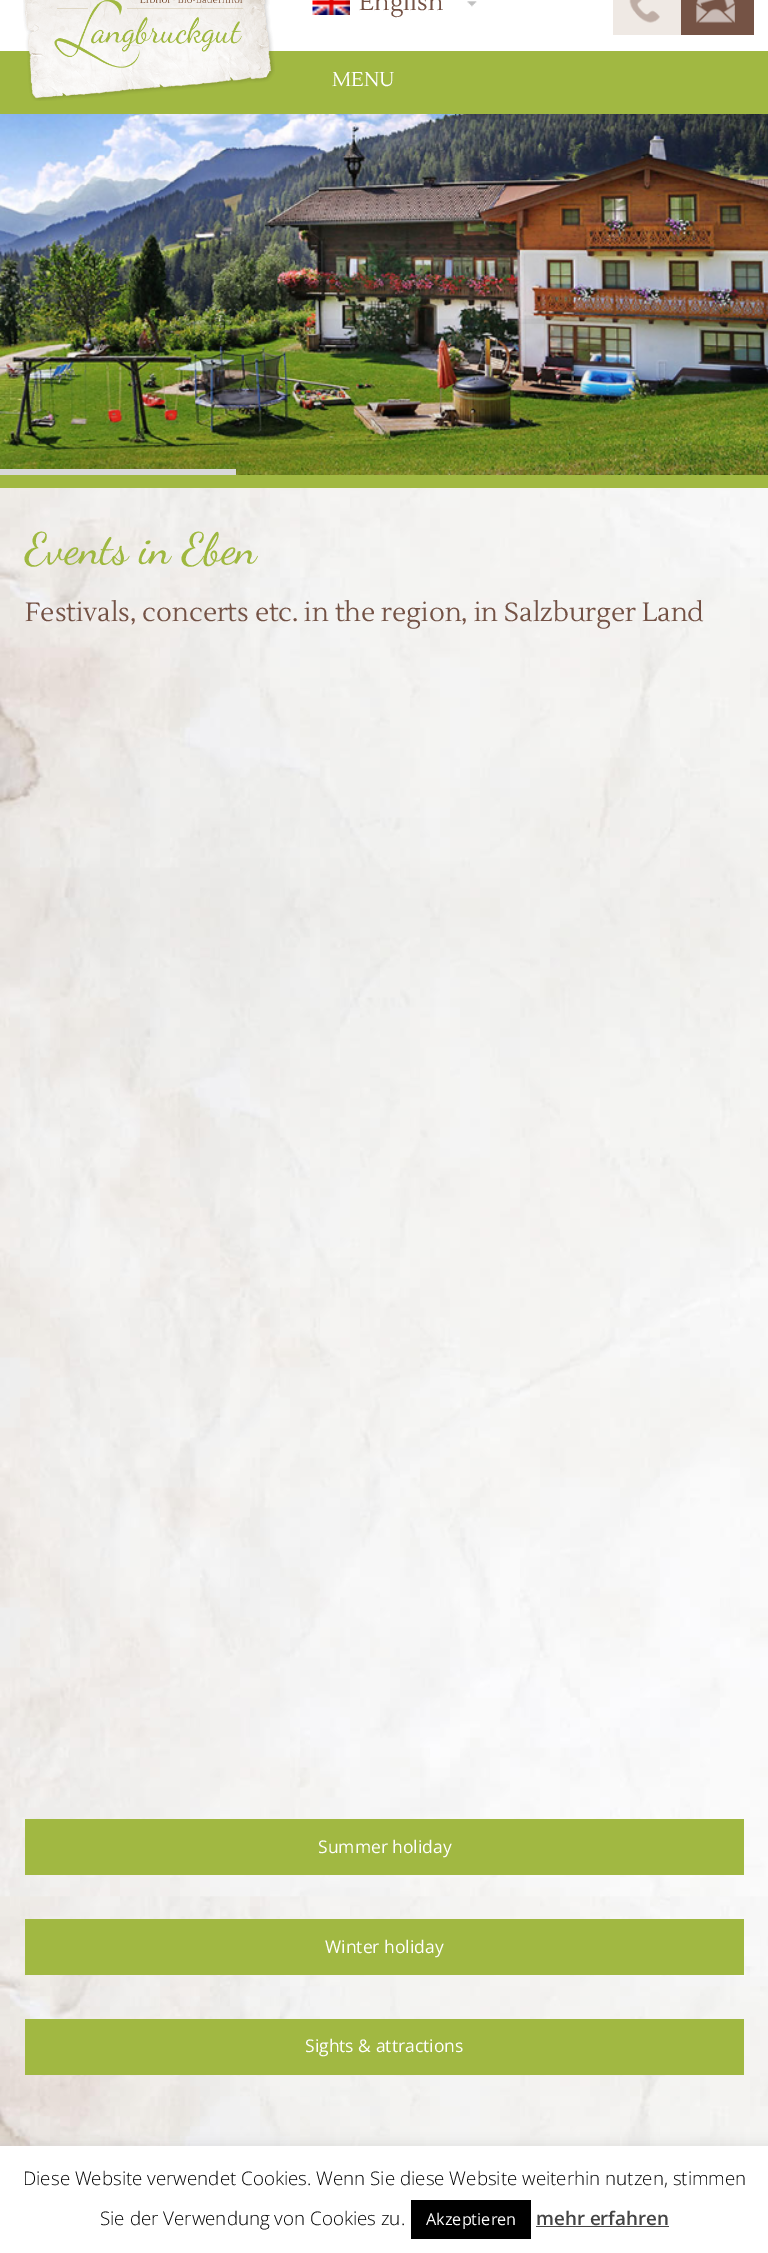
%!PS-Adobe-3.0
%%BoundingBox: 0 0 768 2253
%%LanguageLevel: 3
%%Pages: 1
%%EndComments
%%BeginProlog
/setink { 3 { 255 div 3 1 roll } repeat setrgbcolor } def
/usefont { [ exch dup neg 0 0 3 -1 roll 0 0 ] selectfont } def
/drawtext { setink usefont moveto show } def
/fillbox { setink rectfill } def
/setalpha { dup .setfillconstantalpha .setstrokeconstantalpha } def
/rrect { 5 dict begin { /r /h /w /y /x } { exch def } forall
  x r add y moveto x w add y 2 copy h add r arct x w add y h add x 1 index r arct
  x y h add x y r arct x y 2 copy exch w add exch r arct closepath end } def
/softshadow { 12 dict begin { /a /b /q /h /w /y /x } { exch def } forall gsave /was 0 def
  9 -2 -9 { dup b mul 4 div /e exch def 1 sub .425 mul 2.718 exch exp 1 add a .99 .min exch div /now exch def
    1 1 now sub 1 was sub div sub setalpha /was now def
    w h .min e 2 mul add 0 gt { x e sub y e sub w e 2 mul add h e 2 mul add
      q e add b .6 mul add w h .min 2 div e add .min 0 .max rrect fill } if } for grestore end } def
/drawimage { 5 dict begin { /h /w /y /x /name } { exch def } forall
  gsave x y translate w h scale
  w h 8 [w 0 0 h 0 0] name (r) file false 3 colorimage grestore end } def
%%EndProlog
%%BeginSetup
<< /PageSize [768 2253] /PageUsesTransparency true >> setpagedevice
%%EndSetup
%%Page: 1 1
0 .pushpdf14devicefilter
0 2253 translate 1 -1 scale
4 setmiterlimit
0 0 768 2253 255 255 255 fillbox
0 51 768 63 161 184 66 fillbox
(assets/img1.rgb) 23 0 252 101 drawimage
(assets/img2.rgb) 467 1 10 6 drawimage
(assets/img3.rgb) 312 0 38 15 drawimage
(English) 359 10 /Lustria-Regular 24 116 82 69 drawtext
613 0 68 35 239 233 228 fillbox
(assets/img4.rgb) 629 0 31 23 drawimage
681 0 73 35 117 83 69 fillbox
(assets/img5.rgb) 696 0 39 23 drawimage
(MENU) 332 86 /Lustria-Regular 20 255 255 255 drawtext
(assets/img6.rgb) 0 114 768 361 drawimage
0 469 236 6 255 255 255 fillbox
0 0 0 setink
0 600 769 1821 0 125 1 softshadow
(assets/img7.rgb) 0 488 768 1658 drawimage
0 475 768 13 161 184 66 fillbox
(Events in Eben) 25 563 /DancingScript-Medium 43.75 159 184 64 drawtext
(Festivals, concerts etc. in the region, in Salzburger Land) 25 621 /Lustria-Regular 26.25 116 82 69 drawtext
25 1819 719 56 161 184 66 fillbox
(Summer holiday) 318 1853 /OpenSans-Regular 17.5 255 255 255 drawtext
25 1919 719 56 161 184 66 fillbox
(Winter holiday) 325 1953 /OpenSans-Regular 17.5 255 255 255 drawtext
25 2019 719 56 161 184 66 fillbox
(Sights & attractions) 305 2052 /OpenSans-Regular 17.5 255 255 255 drawtext
172 171 171 setink
0 2145 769 108 0 6 0.3 softshadow
0 2146 768 107 255 255 255 fillbox
(Diese Website verwendet Cookies. Wenn Sie diese Website weiterhin nutzen, stimmen) 23 2185 /OpenSans-Light 18.75 0 0 0 drawtext
(Sie der Verwendung von Cookies zu.) 100 2225 /OpenSans-Light 18.75 0 0 0 drawtext
411 2200 120 39 0 0 0 fillbox
(Akzeptieren) 426 2225 /OpenSans-Regular 16.25 255 255 255 drawtext
(mehr erfahren) 536 2225 /OpenSans-SemiBold 18.75 68 68 68 drawtext
536 2226 133 1 68 68 68 fillbox
.poppdf14devicefilter showpage
%%EOF
